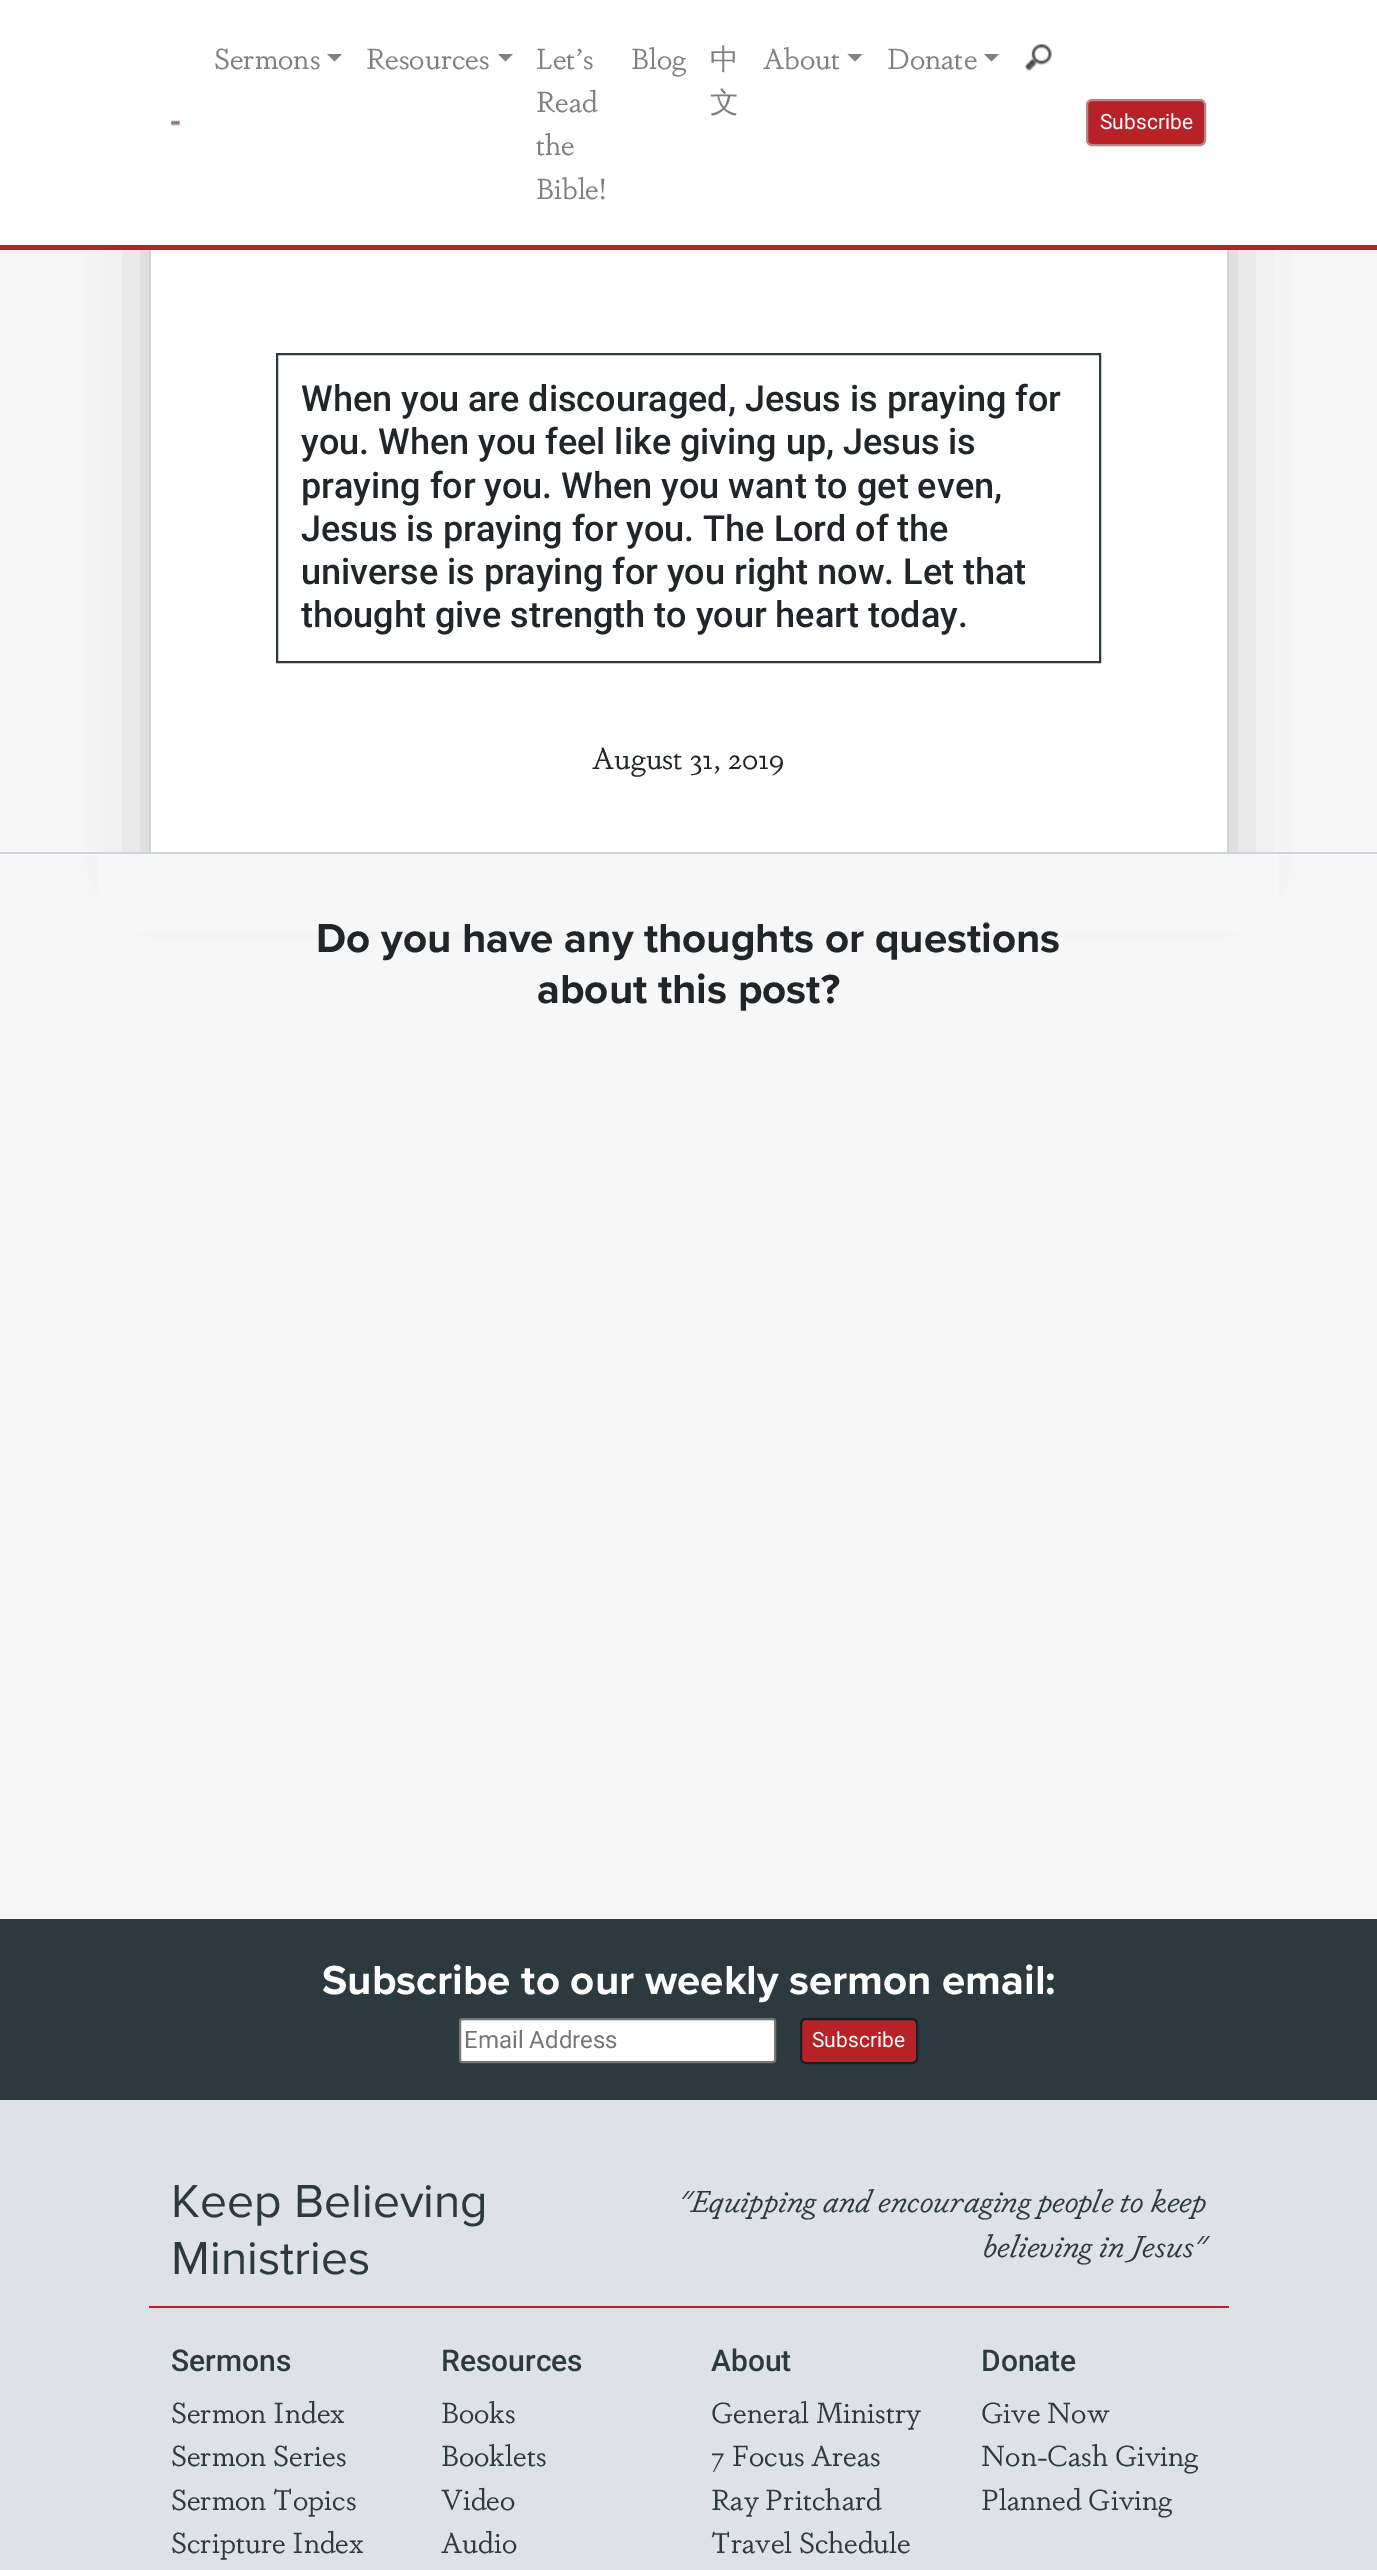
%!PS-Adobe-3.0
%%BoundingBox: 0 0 1377 2570
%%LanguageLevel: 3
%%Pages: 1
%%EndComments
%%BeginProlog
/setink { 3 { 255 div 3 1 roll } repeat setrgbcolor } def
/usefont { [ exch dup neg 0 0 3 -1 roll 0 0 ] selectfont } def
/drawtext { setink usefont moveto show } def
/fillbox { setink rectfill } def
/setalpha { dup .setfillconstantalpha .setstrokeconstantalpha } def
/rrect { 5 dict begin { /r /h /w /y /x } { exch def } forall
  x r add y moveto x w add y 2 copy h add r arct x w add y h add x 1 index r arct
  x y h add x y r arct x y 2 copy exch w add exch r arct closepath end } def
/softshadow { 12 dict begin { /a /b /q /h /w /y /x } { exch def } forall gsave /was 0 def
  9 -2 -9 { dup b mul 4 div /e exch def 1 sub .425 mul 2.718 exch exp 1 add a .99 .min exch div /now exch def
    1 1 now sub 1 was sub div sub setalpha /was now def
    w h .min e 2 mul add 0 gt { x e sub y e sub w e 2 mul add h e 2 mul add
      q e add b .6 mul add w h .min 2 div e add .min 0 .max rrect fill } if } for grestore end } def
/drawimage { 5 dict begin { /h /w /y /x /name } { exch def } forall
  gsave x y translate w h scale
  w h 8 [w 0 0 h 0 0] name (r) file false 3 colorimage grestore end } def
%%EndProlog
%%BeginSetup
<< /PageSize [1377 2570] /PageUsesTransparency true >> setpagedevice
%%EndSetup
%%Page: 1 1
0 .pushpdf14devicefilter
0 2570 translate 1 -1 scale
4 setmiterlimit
0 0 1377 2570 248 247 247 fillbox
151 250 1076 602 255 255 255 fillbox
gsave
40 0 moveto 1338 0 lineto 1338 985 lineto 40 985 lineto closepath 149 -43 moveto 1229 -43 lineto 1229 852 lineto 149 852 lineto closepath eoclip newpath
0 0 0 setink
149 -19 1080 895 0 36 0.18 softshadow
grestore
0 0 1377 245 255 255 255 fillbox
0 245 1377 5 183 34 40 fillbox
(assets/img1.rgb) 171 120 9 6 drawimage
(Sermons) 214 69 /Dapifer-Regular 28.75 128 128 128 drawtext
327 54 moveto 342 54 lineto 334.5 61.5 lineto closepath fill
(Resources) 366 69 /Dapifer-Regular 28.75 128 128 128 drawtext
498 54 moveto 513 54 lineto 505.5 61.5 lineto closepath fill
(Let’s) 536 69 /Dapifer-Regular 28.75 128 128 128 drawtext
(Read) 536 112 /Dapifer-Regular 28.75 128 128 128 drawtext
(the) 536 155 /Dapifer-Regular 28.75 128 128 128 drawtext
(Bible!) 536 199 /Dapifer-Regular 28.75 128 128 128 drawtext
(Blog) 631 69 /Dapifer-Regular 28.75 128 128 128 drawtext
(中) 710 69 /WenQuanYiZenHei-Medium 28.75 128 128 128 drawtext
(文) 710 112 /WenQuanYiZenHei-Medium 28.75 128 128 128 drawtext
(About) 763 69 /Dapifer-Regular 28.75 128 128 128 drawtext
847.5 54 moveto 862.5 54 lineto 855 61.5 lineto closepath fill
(Donate) 887 69 /Dapifer-Regular 28.75 128 128 128 drawtext
984 54 moveto 999 54 lineto 991.5 61.5 lineto closepath fill
(assets/img2.rgb) 1024 44 28 27 drawimage
183 34 40 setink
1087 100 118 45 5 rrect gsave fill grestore
181 134 135 setink
2 setlinewidth
stroke
(Subscribe) 1100 129 /Roboto-Regular 21 255 255 255 drawtext
1227 250 2 602 206 212 218 fillbox
149 250 2 602 206 212 218 fillbox
44 58 63 setink
277 354 823 308 rectstroke
(When you are discouraged, Jesus is praying for) 301 411 /Roboto-Medium 36 33 37 41 drawtext
(you. When you feel like giving up, Jesus is) 301 454 /Roboto-Medium 36 33 37 41 drawtext
(praying for you. When you want to get even,) 301 498 /Roboto-Medium 36 33 37 41 drawtext
(Jesus is praying for you. The Lord of the) 301 541 /Roboto-Medium 36 33 37 41 drawtext
(universe is praying for you right now. Let that) 301 584 /Roboto-Medium 36 33 37 41 drawtext
(thought give strength to your heart today.) 301 627 /Roboto-Medium 36 33 37 41 drawtext
(August 31, 2019) 592 769 /Dapifer-Regular 30 33 37 41 drawtext
99 854 1180 78 248 247 247 fillbox
0 852 1377 2 206 212 218 fillbox
(Do you have any thoughts or questions) 316 952 /ProximaNova-Bold 42 33 37 41 drawtext
(about this post?) 537 1003 /ProximaNova-Bold 42 33 37 41 drawtext
0 2100 1377 470 222 226 230 fillbox
0 1919 1377 181 44 58 63 fillbox
(Subscribe to our weekly sermon email:) 322 1994 /ProximaNova-Bold 42 255 255 255 drawtext
460 2019 315 43 2 rrect gsave fill grestore
118 118 118 setink
stroke
(Email Address) 464 2048 /Roboto-Regular 24 117 117 117 drawtext
183 34 40 setink
801 2019 116 44 5 rrect gsave fill grestore
25 32 35 setink
stroke
(Subscribe) 812 2047 /Roboto-Regular 21 255 255 255 drawtext
(Keep Believing) 171 2217 /ProximaNova-Regular 48 44 58 63 drawtext
(Ministries) 171 2274 /ProximaNova-Regular 48 44 58 63 drawtext
("Equipping and encouraging people to keep) 678 2212 /Dapifer-Italic 30 44 58 63 drawtext
(believing in Jesus") 983 2257 /Dapifer-Italic 30 44 58 63 drawtext
149 2306 1080 2 183 34 40 fillbox
(Sermons) 171 2371 /Roboto-Medium 30 44 58 63 drawtext
(Sermon Index) 171 2423 /Dapifer-Regular 28.75 44 58 63 drawtext
(Sermon Series) 171 2466 /Dapifer-Regular 28.75 44 58 63 drawtext
(Sermon Topics) 171 2510 /Dapifer-Regular 28.75 44 58 63 drawtext
(Scripture Index) 171 2553 /Dapifer-Regular 28.75 44 58 63 drawtext
(Resources) 441 2371 /Roboto-Medium 30 44 58 63 drawtext
(Books) 441 2423 /Dapifer-Regular 28.75 44 58 63 drawtext
(Booklets) 441 2466 /Dapifer-Regular 28.75 44 58 63 drawtext
(Video) 441 2510 /Dapifer-Regular 28.75 44 58 63 drawtext
(Audio) 441 2553 /Dapifer-Regular 28.75 44 58 63 drawtext
(About) 711 2371 /Roboto-Medium 30 44 58 63 drawtext
(General Ministry) 711 2423 /Dapifer-Regular 28.75 44 58 63 drawtext
(7 Focus Areas) 711 2466 /Dapifer-Regular 28.75 44 58 63 drawtext
(Ray Pritchard) 711 2510 /Dapifer-Regular 28.75 44 58 63 drawtext
(Travel Schedule) 711 2553 /Dapifer-Regular 28.75 44 58 63 drawtext
(Donate) 981 2371 /Roboto-Medium 30 44 58 63 drawtext
(Give Now) 981 2423 /Dapifer-Regular 28.75 44 58 63 drawtext
(Non-Cash Giving) 981 2466 /Dapifer-Regular 28.75 44 58 63 drawtext
(Planned Giving) 981 2510 /Dapifer-Regular 28.75 44 58 63 drawtext
.poppdf14devicefilter showpage
%%EOF
